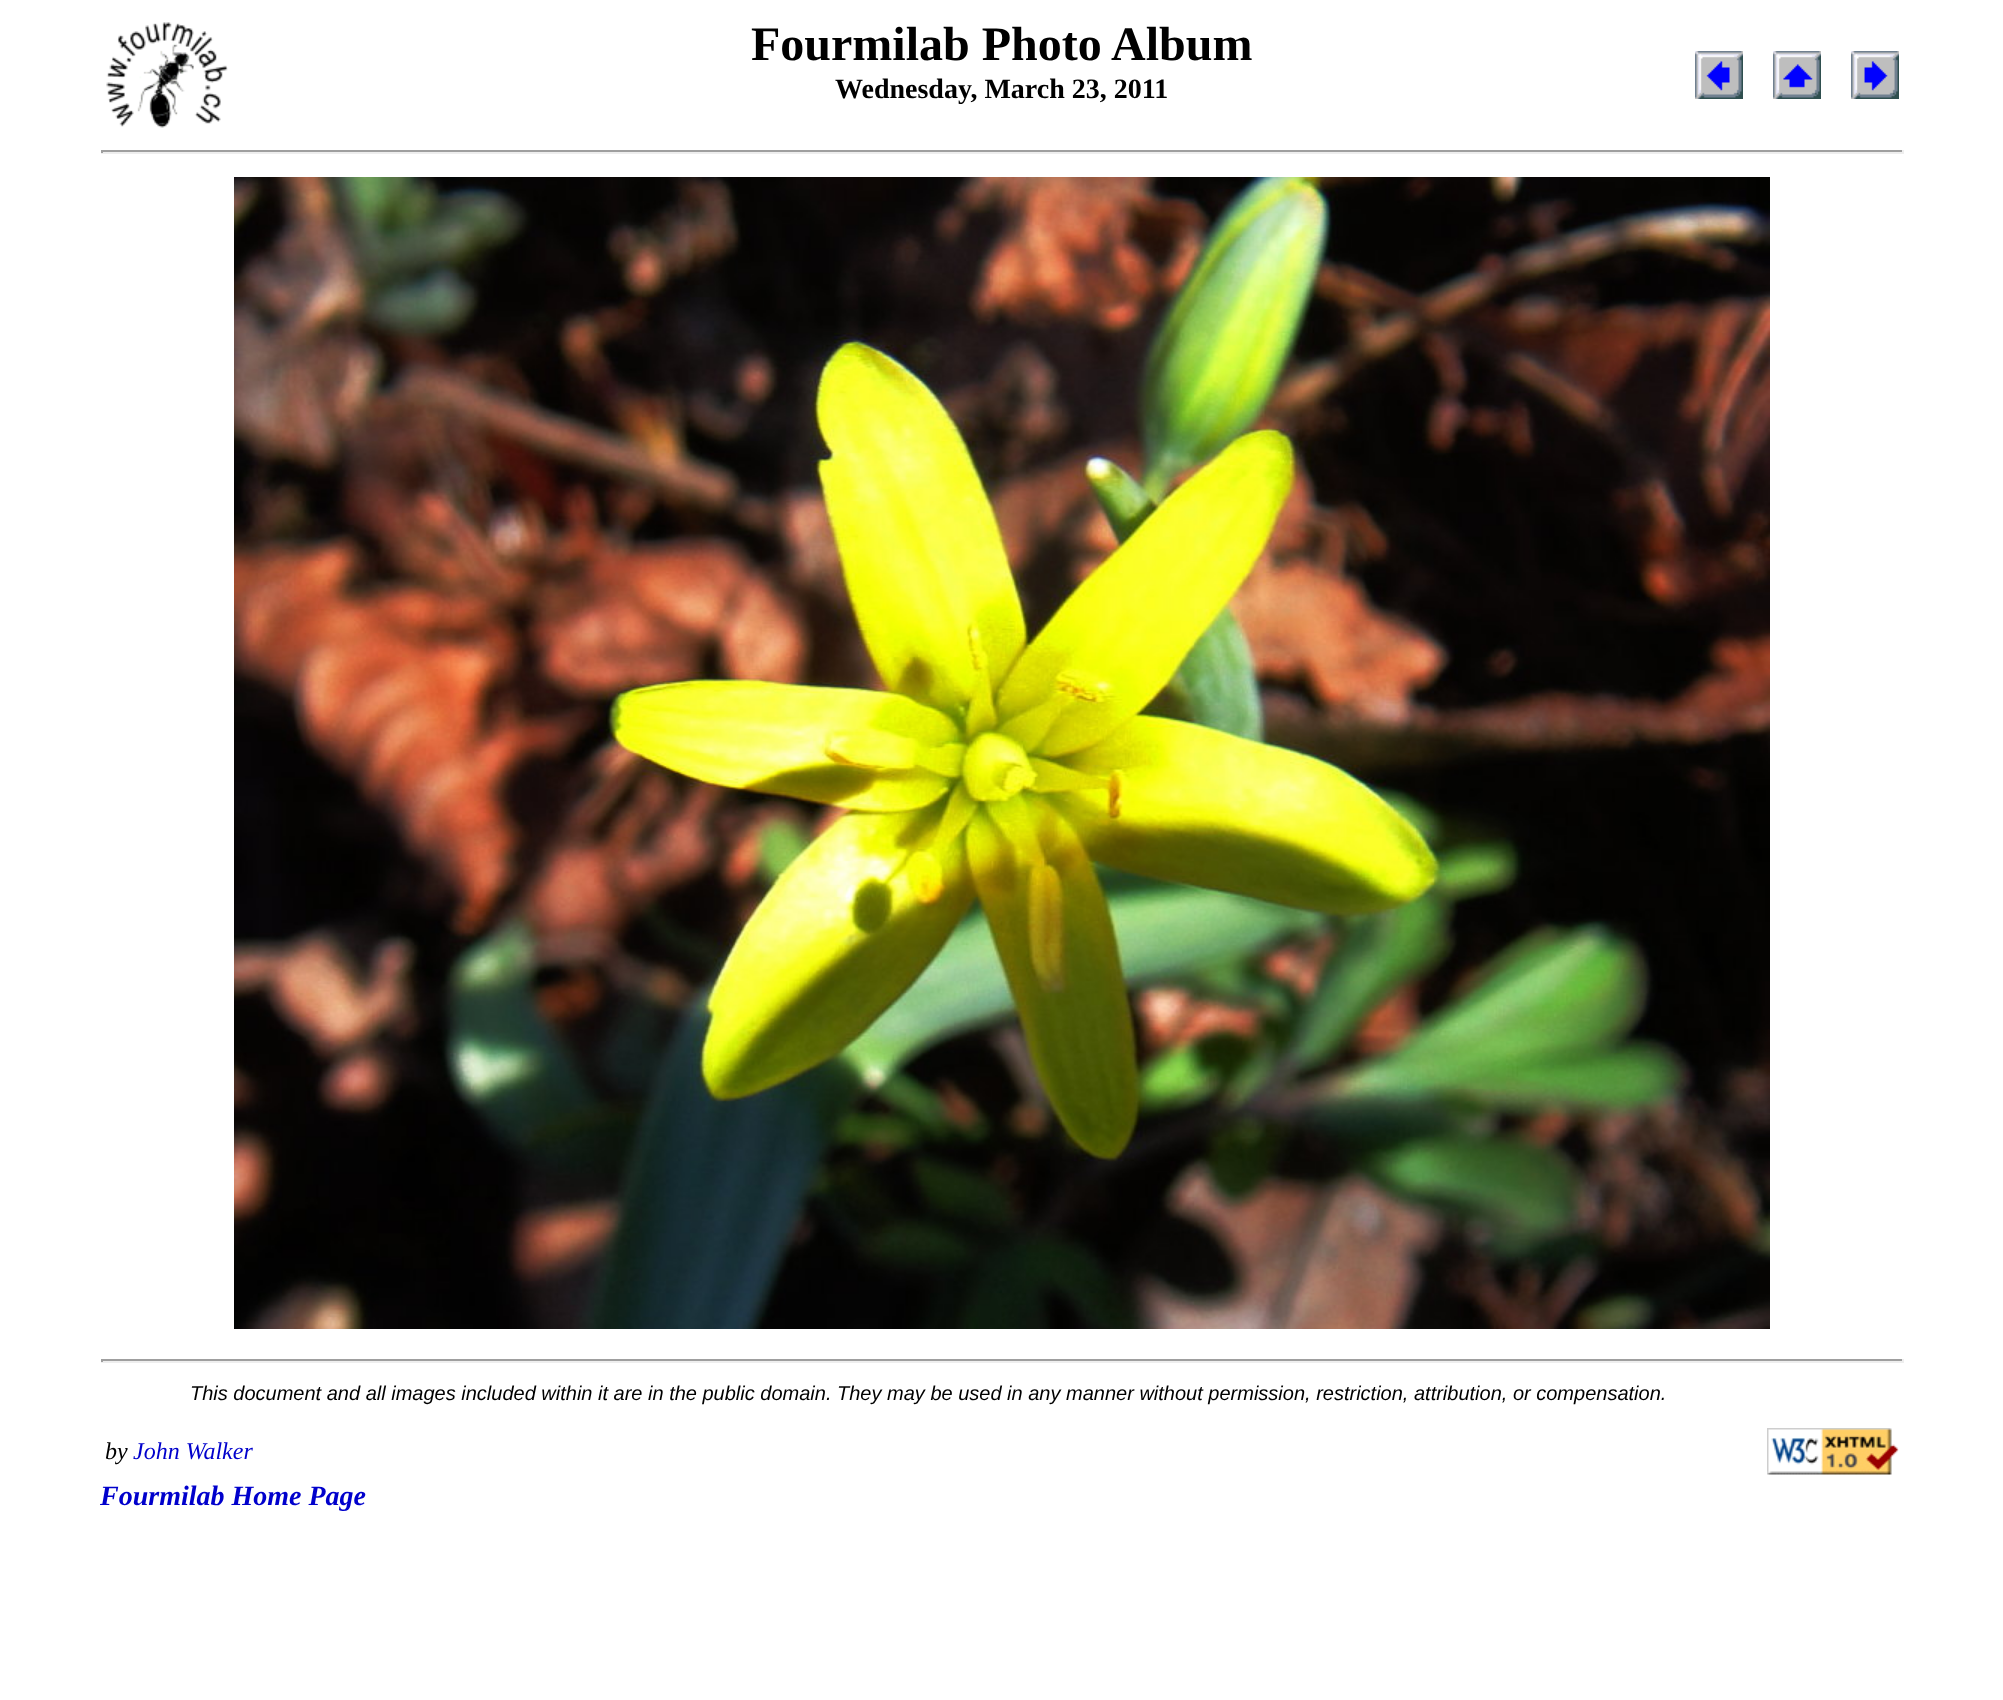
<!DOCTYPE html>
<meta charset="utf-8">
<style>body { margin: 0 } canvas { display: block }</style>
<canvas id="canvas" width="2003" height="1700"></canvas>
<img id="img1" src="images/1.png" hidden>
<img id="img2" src="images/2.png" hidden>
<img id="img3" src="images/3.png" hidden>
<img id="img4" src="images/4.png" hidden>
<img id="img5" src="images/5.png" hidden>
<img id="img6" src="images/6.png" hidden>
<script>
window.onload = function () {
    const canvas = document.getElementById('canvas');
    const context = canvas.getContext('2d');
    context.miterLimit = 4;
    context.fontKerning = 'normal';

    context.fillStyle = 'rgb(255, 255, 255)';
    context.fillRect(0, 0, 2003, 1700);
    context.drawImage(document.getElementById('img1'), 106, 22, 122, 106);
    context.drawImage(document.getElementById('img2'), 1695, 51, 48, 48);
    context.drawImage(document.getElementById('img3'), 1773, 51, 48, 48);
    context.drawImage(document.getElementById('img4'), 1851, 51, 48, 48);
    context.fillStyle = 'rgb(159, 159, 159)';
    context.fillRect(101, 150, 1803, 2);
    context.fillStyle = 'rgb(238, 238, 238)';
    context.fillRect(1902, 150, 2, 3);
    context.fillRect(101, 152, 1803, 2);
    context.fillStyle = 'rgb(159, 159, 159)';
    context.fillRect(101, 150, 2, 3);
    context.drawImage(document.getElementById('img5'), 234, 177, 1536, 1152);
    context.fillRect(101, 1359, 1803, 2);
    context.fillStyle = 'rgb(238, 238, 238)';
    context.fillRect(1902, 1359, 2, 3);
    context.fillRect(101, 1361, 1803, 2);
    context.fillStyle = 'rgb(159, 159, 159)';
    context.fillRect(101, 1359, 2, 3);
    context.drawImage(document.getElementById('img6'), 1767, 1428, 132, 47);
    context.font = 'bold 48px Liberation Serif';
    context.fillStyle = 'rgb(0, 0, 0)';
    context.fillText('Fourmilab Photo Album', 751, 60);
    context.font = 'bold 28px Liberation Serif';
    context.fillText('Wednesday, March 23, 2011', 835, 98);
    context.font = 'italic 20px Liberation Sans';
    context.fillText('This document and all images included within it are in the public domain. They may be used in any manner without permission, restriction, attribution, or compensation.', 190, 1400);
    context.font = 'italic 24px Liberation Serif';
    context.fillText('by', 105, 1459);
    context.fillStyle = 'rgb(0, 0, 204)';
    context.fillText('John Walker', 133, 1459);
    context.font = 'italic bold 28px Liberation Serif';
    context.fillText('Fourmilab Home Page', 100, 1505);
};
</script>
